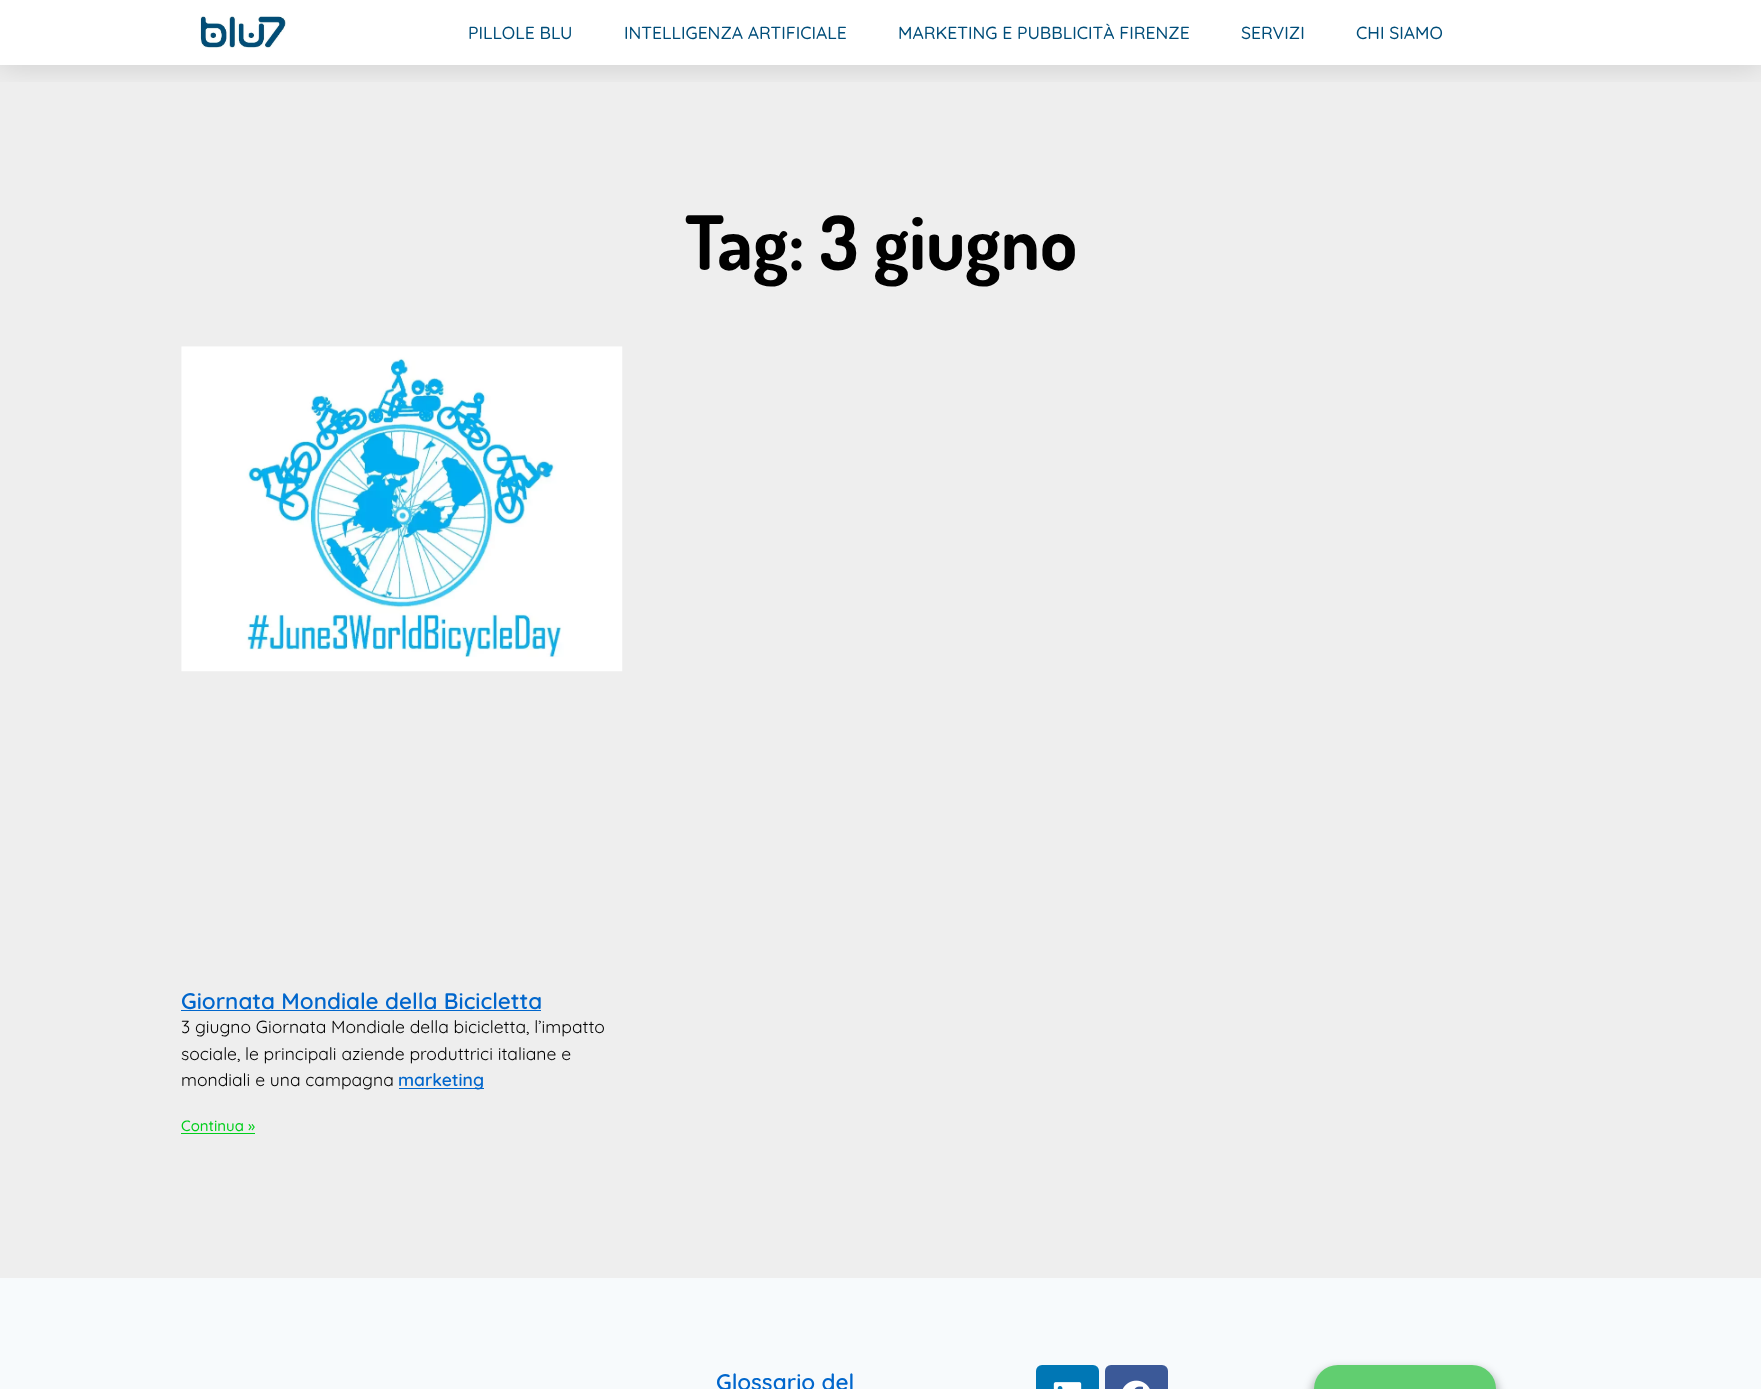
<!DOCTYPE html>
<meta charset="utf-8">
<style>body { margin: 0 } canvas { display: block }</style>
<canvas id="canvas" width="1761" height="1389"></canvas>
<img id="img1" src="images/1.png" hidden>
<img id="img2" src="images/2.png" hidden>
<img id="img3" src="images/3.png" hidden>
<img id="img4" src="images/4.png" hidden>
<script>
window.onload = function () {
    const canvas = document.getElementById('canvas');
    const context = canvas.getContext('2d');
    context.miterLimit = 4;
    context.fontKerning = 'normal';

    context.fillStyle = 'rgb(255, 255, 255)';
    context.fillRect(0, 0, 1761, 1389);
    context.fillStyle = 'rgb(238, 238, 238)';
    context.fillRect(0, 65, 1761, 1213);
    context.save();
    context.beginPath();
    context.rect(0, 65, 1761, 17);
    context.clip();
    context.fillStyle = 'rgba(0, 0, 0, 0.15)';
    context.filter = 'blur(15px)';
    context.beginPath();
    context.rect(0, 0, 1761, 65);
    context.fill();
    context.filter = 'none';
    context.restore();
    context.drawImage(document.getElementById('img1'), 200, 16, 86, 32);
    context.drawImage(document.getElementById('img2'), 181, 346, 442, 326);
    context.fillStyle = 'rgb(0, 102, 204)';
    context.fillRect(181, 1010, 360, 1);
    context.fillRect(399, 1088, 85, 1);
    context.fillStyle = 'rgb(0, 206, 27)';
    context.fillRect(181, 1133, 74, 1);
    context.fillStyle = 'rgb(247, 250, 252)';
    context.fillRect(0, 1278, 1761, 111);
    context.fillStyle = 'rgb(0, 119, 181)';
    context.beginPath();
    context.roundRect(1036, 1365, 63, 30, 6);
    context.fill();
    context.drawImage(document.getElementById('img3'), 1053, 1382, 29, 7);
    context.fillStyle = 'rgb(59, 89, 152)';
    context.beginPath();
    context.roundRect(1105, 1365, 63, 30, 6);
    context.fill();
    context.drawImage(document.getElementById('img4'), 1122, 1380, 28, 9);
    context.fillStyle = 'rgba(0, 0, 0, 0.25)';
    context.filter = 'blur(4px)';
    context.beginPath();
    context.roundRect(1311, 1368, 188, 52, 26);
    context.fill();
    context.filter = 'none';
    context.fillStyle = 'rgb(97, 206, 112)';
    context.beginPath();
    context.roundRect(1314, 1365, 182, 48, 24);
    context.fill();
    context.font = '500 17.5px Quicksand';
    context.fillStyle = 'rgb(0, 77, 121)';
    context.fillText('PILLOLE BLU', 468, 39);
    context.fillText('INTELLIGENZA ARTIFICIALE', 624, 39);
    context.fillText('MARKETING E PUBBLICITÀ FIRENZE', 898, 39);
    context.fillText('SERVIZI', 1241, 39);
    context.fillText('CHI SIAMO', 1356, 39);
    context.font = 'bold 75px Dosis';
    context.fillStyle = 'rgb(0, 0, 0)';
    context.fillText('Tag: 3 giugno', 685, 270);
    context.font = '600 22.5px Quicksand';
    context.fillStyle = 'rgb(0, 102, 204)';
    context.fillText('Giornata Mondiale della Bicicletta', 181, 1009);
    context.font = '17.5px Quicksand';
    context.fillStyle = 'rgb(0, 0, 0)';
    context.fillText('3 giugno Giornata Mondiale della bicicletta, l’impatto', 181, 1033);
    context.fillText('sociale, le principali aziende produttrici italiane e', 181, 1060);
    context.fillText('mondiali e una campagna', 181, 1086);
    context.font = '600 17.5px Quicksand';
    context.fillStyle = 'rgb(0, 102, 204)';
    context.fillText('marketing', 398, 1086);
    context.font = '500 15px Quicksand';
    context.fillStyle = 'rgb(0, 206, 27)';
    context.fillText('Continua »', 181, 1131);
    context.font = '600 22.5px Quicksand';
    context.fillStyle = 'rgb(0, 102, 204)';
    context.fillText('Glossario del', 716, 1390);
};
</script>
